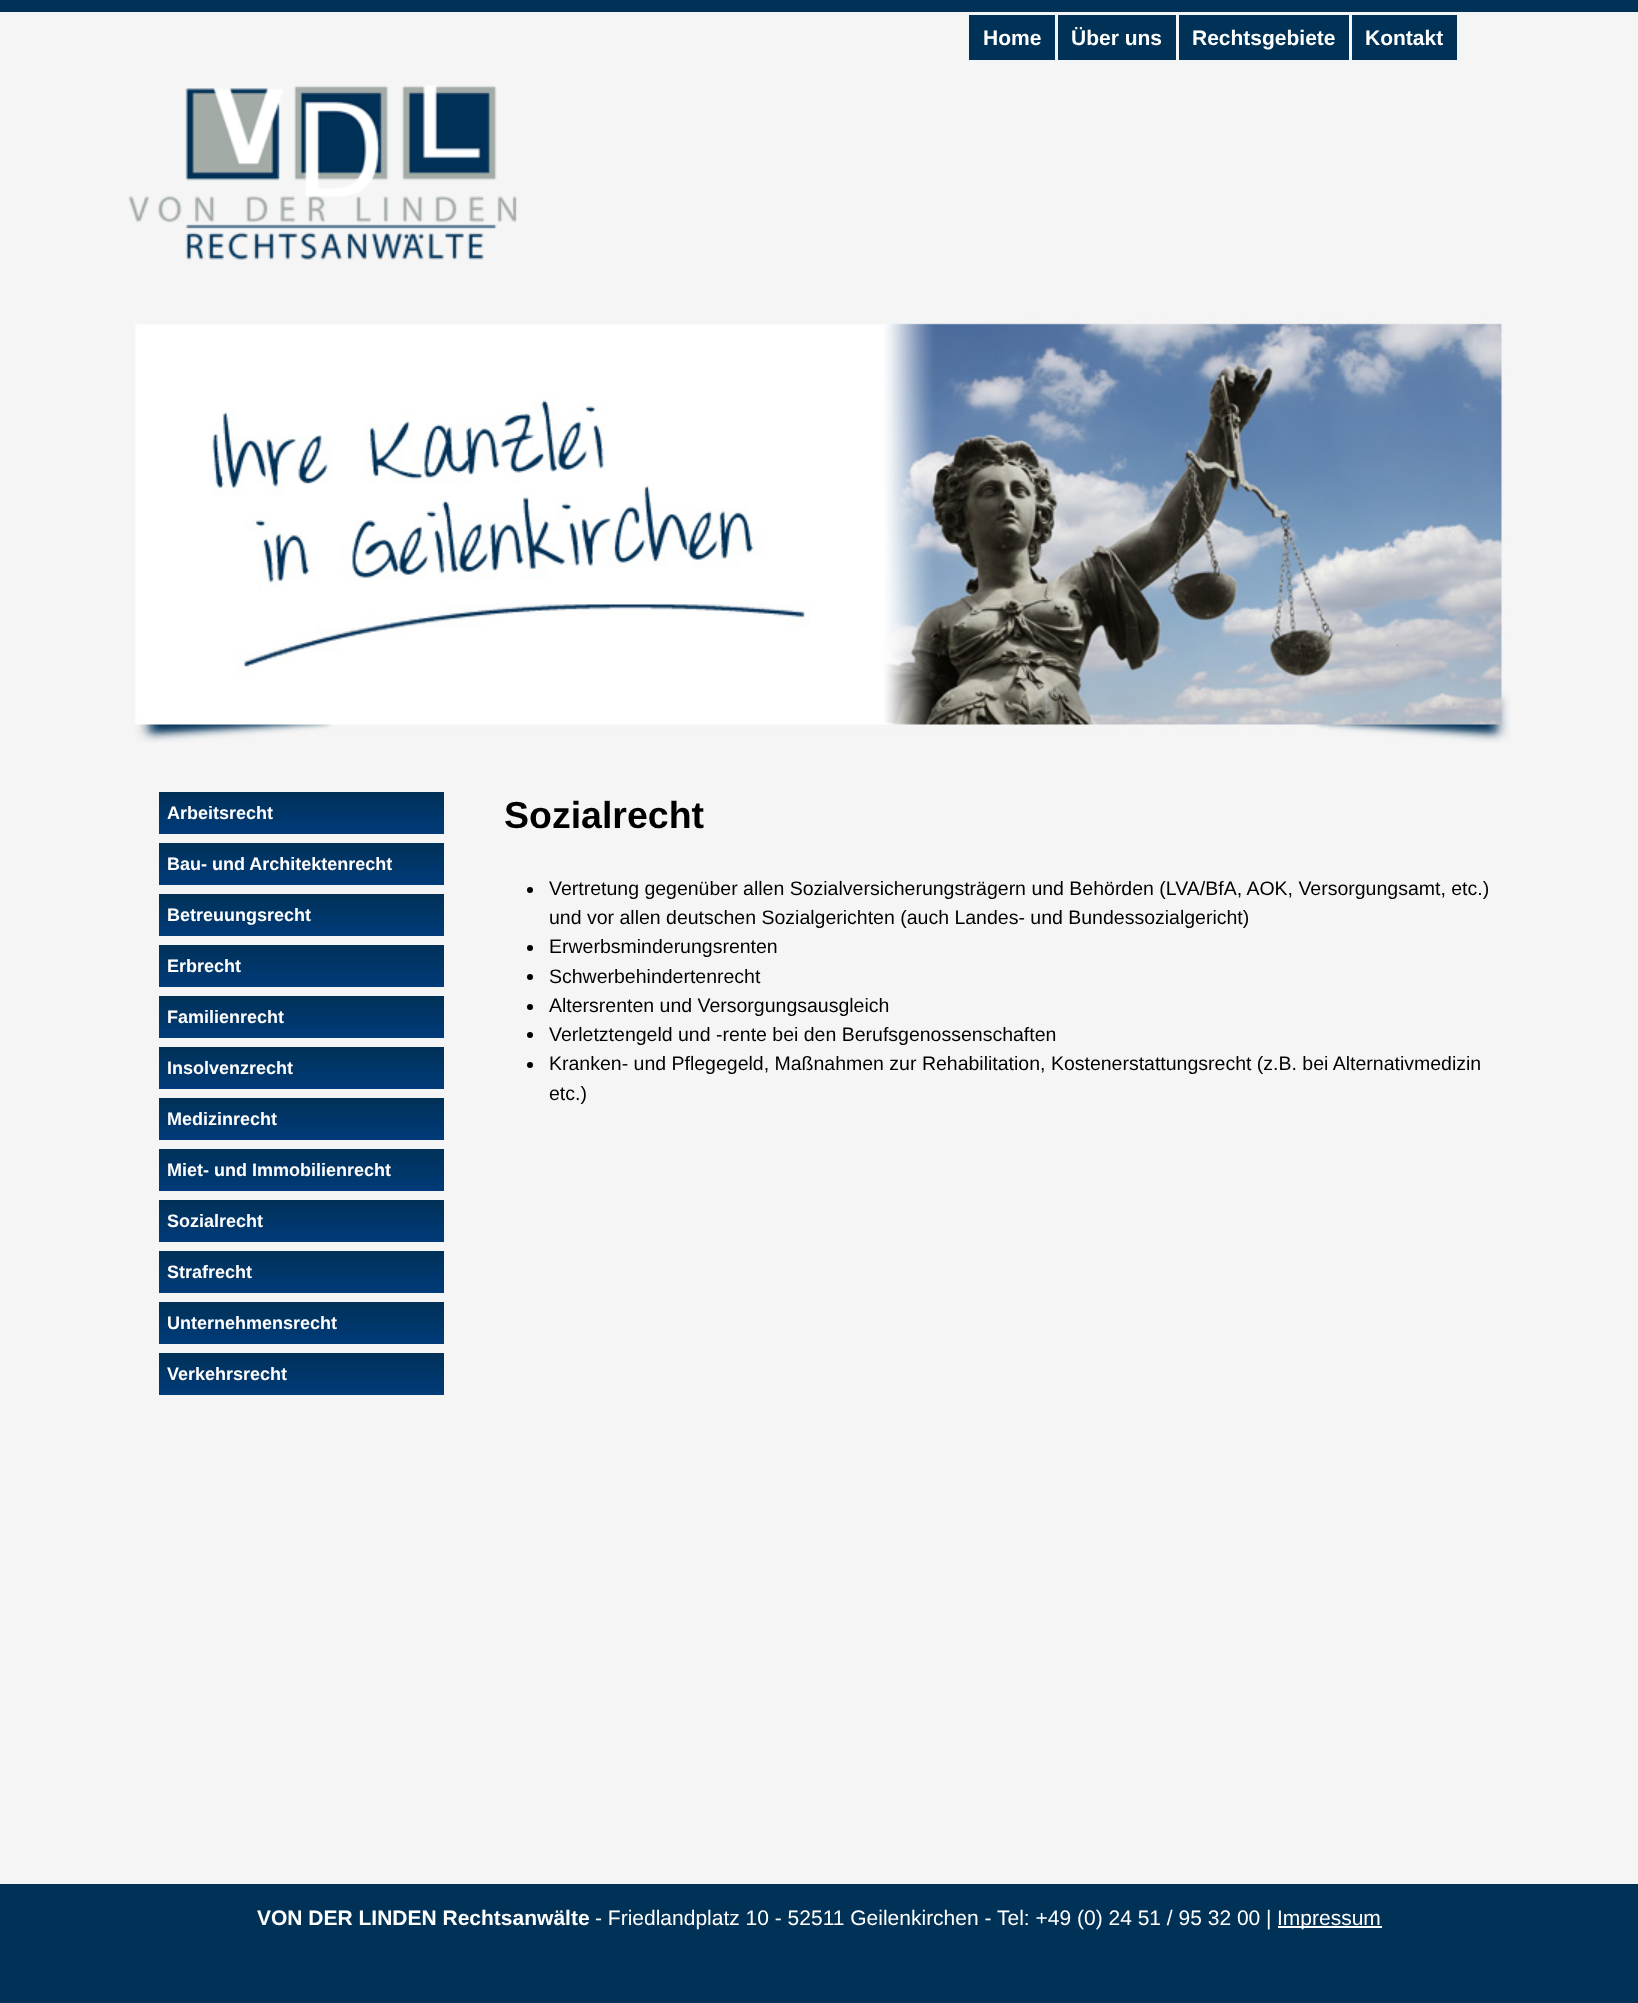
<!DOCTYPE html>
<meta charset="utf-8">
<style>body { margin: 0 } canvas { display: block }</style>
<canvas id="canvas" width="1638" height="2003"></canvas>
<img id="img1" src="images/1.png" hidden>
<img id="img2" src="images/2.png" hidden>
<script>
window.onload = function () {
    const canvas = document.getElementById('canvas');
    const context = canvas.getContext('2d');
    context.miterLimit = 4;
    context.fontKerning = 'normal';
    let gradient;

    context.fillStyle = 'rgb(245, 245, 245)';
    context.fillRect(0, 0, 1638, 2003);
    context.fillStyle = 'rgb(0, 50, 87)';
    context.fillRect(0, 0, 1638, 12);
    context.fillStyle = 'rgb(0, 49, 87)';
    context.fillRect(969, 15, 86, 45);
    context.fillRect(1058, 15, 118, 45);
    context.fillRect(1179, 15, 170, 45);
    context.fillRect(1352, 15, 105, 45);
    context.drawImage(document.getElementById('img1'), 128, 85, 389, 175);
    context.drawImage(document.getElementById('img2'), 135, 317, 1375, 426);
    gradient = context.createLinearGradient(302, 792, 302, 834);
    gradient.addColorStop(0, 'rgb(0, 49, 87)');
    gradient.addColorStop(1, 'rgb(0, 59, 122)');
    context.fillStyle = gradient;
    context.fillRect(159, 792, 285, 42);
    gradient = context.createLinearGradient(302, 843, 302, 885);
    gradient.addColorStop(0, 'rgb(0, 49, 87)');
    gradient.addColorStop(1, 'rgb(0, 59, 122)');
    context.fillStyle = gradient;
    context.fillRect(159, 843, 285, 42);
    gradient = context.createLinearGradient(302, 894, 302, 936);
    gradient.addColorStop(0, 'rgb(0, 49, 87)');
    gradient.addColorStop(1, 'rgb(0, 59, 122)');
    context.fillStyle = gradient;
    context.fillRect(159, 894, 285, 42);
    gradient = context.createLinearGradient(302, 945, 302, 987);
    gradient.addColorStop(0, 'rgb(0, 49, 87)');
    gradient.addColorStop(1, 'rgb(0, 59, 122)');
    context.fillStyle = gradient;
    context.fillRect(159, 945, 285, 42);
    gradient = context.createLinearGradient(302, 996, 302, 1038);
    gradient.addColorStop(0, 'rgb(0, 49, 87)');
    gradient.addColorStop(1, 'rgb(0, 59, 122)');
    context.fillStyle = gradient;
    context.fillRect(159, 996, 285, 42);
    gradient = context.createLinearGradient(302, 1047, 302, 1089);
    gradient.addColorStop(0, 'rgb(0, 49, 87)');
    gradient.addColorStop(1, 'rgb(0, 59, 122)');
    context.fillStyle = gradient;
    context.fillRect(159, 1047, 285, 42);
    gradient = context.createLinearGradient(302, 1098, 302, 1140);
    gradient.addColorStop(0, 'rgb(0, 49, 87)');
    gradient.addColorStop(1, 'rgb(0, 59, 122)');
    context.fillStyle = gradient;
    context.fillRect(159, 1098, 285, 42);
    gradient = context.createLinearGradient(302, 1149, 302, 1191);
    gradient.addColorStop(0, 'rgb(0, 49, 87)');
    gradient.addColorStop(1, 'rgb(0, 59, 122)');
    context.fillStyle = gradient;
    context.fillRect(159, 1149, 285, 42);
    gradient = context.createLinearGradient(302, 1200, 302, 1242);
    gradient.addColorStop(0, 'rgb(0, 49, 87)');
    gradient.addColorStop(1, 'rgb(0, 59, 122)');
    context.fillStyle = gradient;
    context.fillRect(159, 1200, 285, 42);
    gradient = context.createLinearGradient(302, 1251, 302, 1293);
    gradient.addColorStop(0, 'rgb(0, 49, 87)');
    gradient.addColorStop(1, 'rgb(0, 59, 122)');
    context.fillStyle = gradient;
    context.fillRect(159, 1251, 285, 42);
    gradient = context.createLinearGradient(302, 1302, 302, 1344);
    gradient.addColorStop(0, 'rgb(0, 49, 87)');
    gradient.addColorStop(1, 'rgb(0, 59, 122)');
    context.fillStyle = gradient;
    context.fillRect(159, 1302, 285, 42);
    gradient = context.createLinearGradient(302, 1353, 302, 1395);
    gradient.addColorStop(0, 'rgb(0, 49, 87)');
    gradient.addColorStop(1, 'rgb(0, 59, 122)');
    context.fillStyle = gradient;
    context.fillRect(159, 1353, 285, 42);
    context.fillStyle = 'rgb(0, 0, 0)';
    context.beginPath();
    context.arc(530, 890, 3, 0, 2 * Math.PI);
    context.fill();
    context.beginPath();
    context.arc(530, 948, 3, 0, 2 * Math.PI);
    context.fill();
    context.beginPath();
    context.arc(530, 977, 3, 0, 2 * Math.PI);
    context.fill();
    context.beginPath();
    context.arc(530, 1007, 3, 0, 2 * Math.PI);
    context.fill();
    context.beginPath();
    context.arc(530, 1035, 3, 0, 2 * Math.PI);
    context.fill();
    context.beginPath();
    context.arc(530, 1065, 3, 0, 2 * Math.PI);
    context.fill();
    context.fillStyle = 'rgb(0, 49, 87)';
    context.fillRect(0, 1884, 1638, 119);
    context.fillStyle = 'rgb(255, 255, 255)';
    context.fillRect(1278, 1926, 104, 2);
    context.font = 'bold 21px Liberation Sans';
    context.fillText('Home', 983, 45);
    context.fillText('Über uns', 1071, 45);
    context.fillText('Rechtsgebiete', 1192, 45);
    context.fillText('Kontakt', 1365, 45);
    context.font = 'bold 18px Liberation Sans';
    context.fillText('Arbeitsrecht', 167, 819);
    context.fillText('Bau- und Architektenrecht', 167, 870);
    context.fillText('Betreuungsrecht', 167, 921);
    context.fillText('Erbrecht', 167, 972);
    context.fillText('Familienrecht', 167, 1023);
    context.fillText('Insolvenzrecht', 167, 1074);
    context.fillText('Medizinrecht', 167, 1125);
    context.fillText('Miet- und Immobilienrecht', 167, 1176);
    context.fillText('Sozialrecht', 167, 1227);
    context.fillText('Strafrecht', 167, 1278);
    context.fillText('Unternehmensrecht', 167, 1329);
    context.fillText('Verkehrsrecht', 167, 1380);
    context.font = 'bold 37.5px Liberation Sans';
    context.fillStyle = 'rgb(0, 0, 0)';
    context.fillText('Sozialrecht', 504, 828);
    context.font = '19.5px Liberation Sans';
    context.fillText('Vertretung gegenüber allen Sozialversicherungsträgern und Behörden (LVA/BfA, AOK, Versorgungsamt, etc.)', 549, 895);
    context.fillText('und vor allen deutschen Sozialgerichten (auch Landes- und Bundessozialgericht)', 549, 924);
    context.fillText('Erwerbsminderungsrenten', 549, 953);
    context.fillText('Schwerbehindertenrecht', 549, 983);
    context.fillText('Altersrenten und Versorgungsausgleich', 549, 1012);
    context.fillText('Verletztengeld und -rente bei den Berufsgenossenschaften', 549, 1041);
    context.fillText('Kranken- und Pflegegeld, Maßnahmen zur Rehabilitation, Kostenerstattungsrecht (z.B. bei Alternativmedizin', 549, 1070);
    context.fillText('etc.)', 549, 1100);
    context.font = 'bold 21px Liberation Sans';
    context.fillStyle = 'rgb(255, 255, 255)';
    context.fillText('VON DER LINDEN Rechtsanwälte', 257, 1925);
    context.font = '21px Liberation Sans';
    context.fillText('- Friedlandplatz 10 - 52511 Geilenkirchen -', 595, 1925);
    context.fillText('Tel: +49 (0) 24 51 / 95 32 00 |', 997, 1925);
    context.fillText('Impressum', 1277, 1925);
};
</script>
